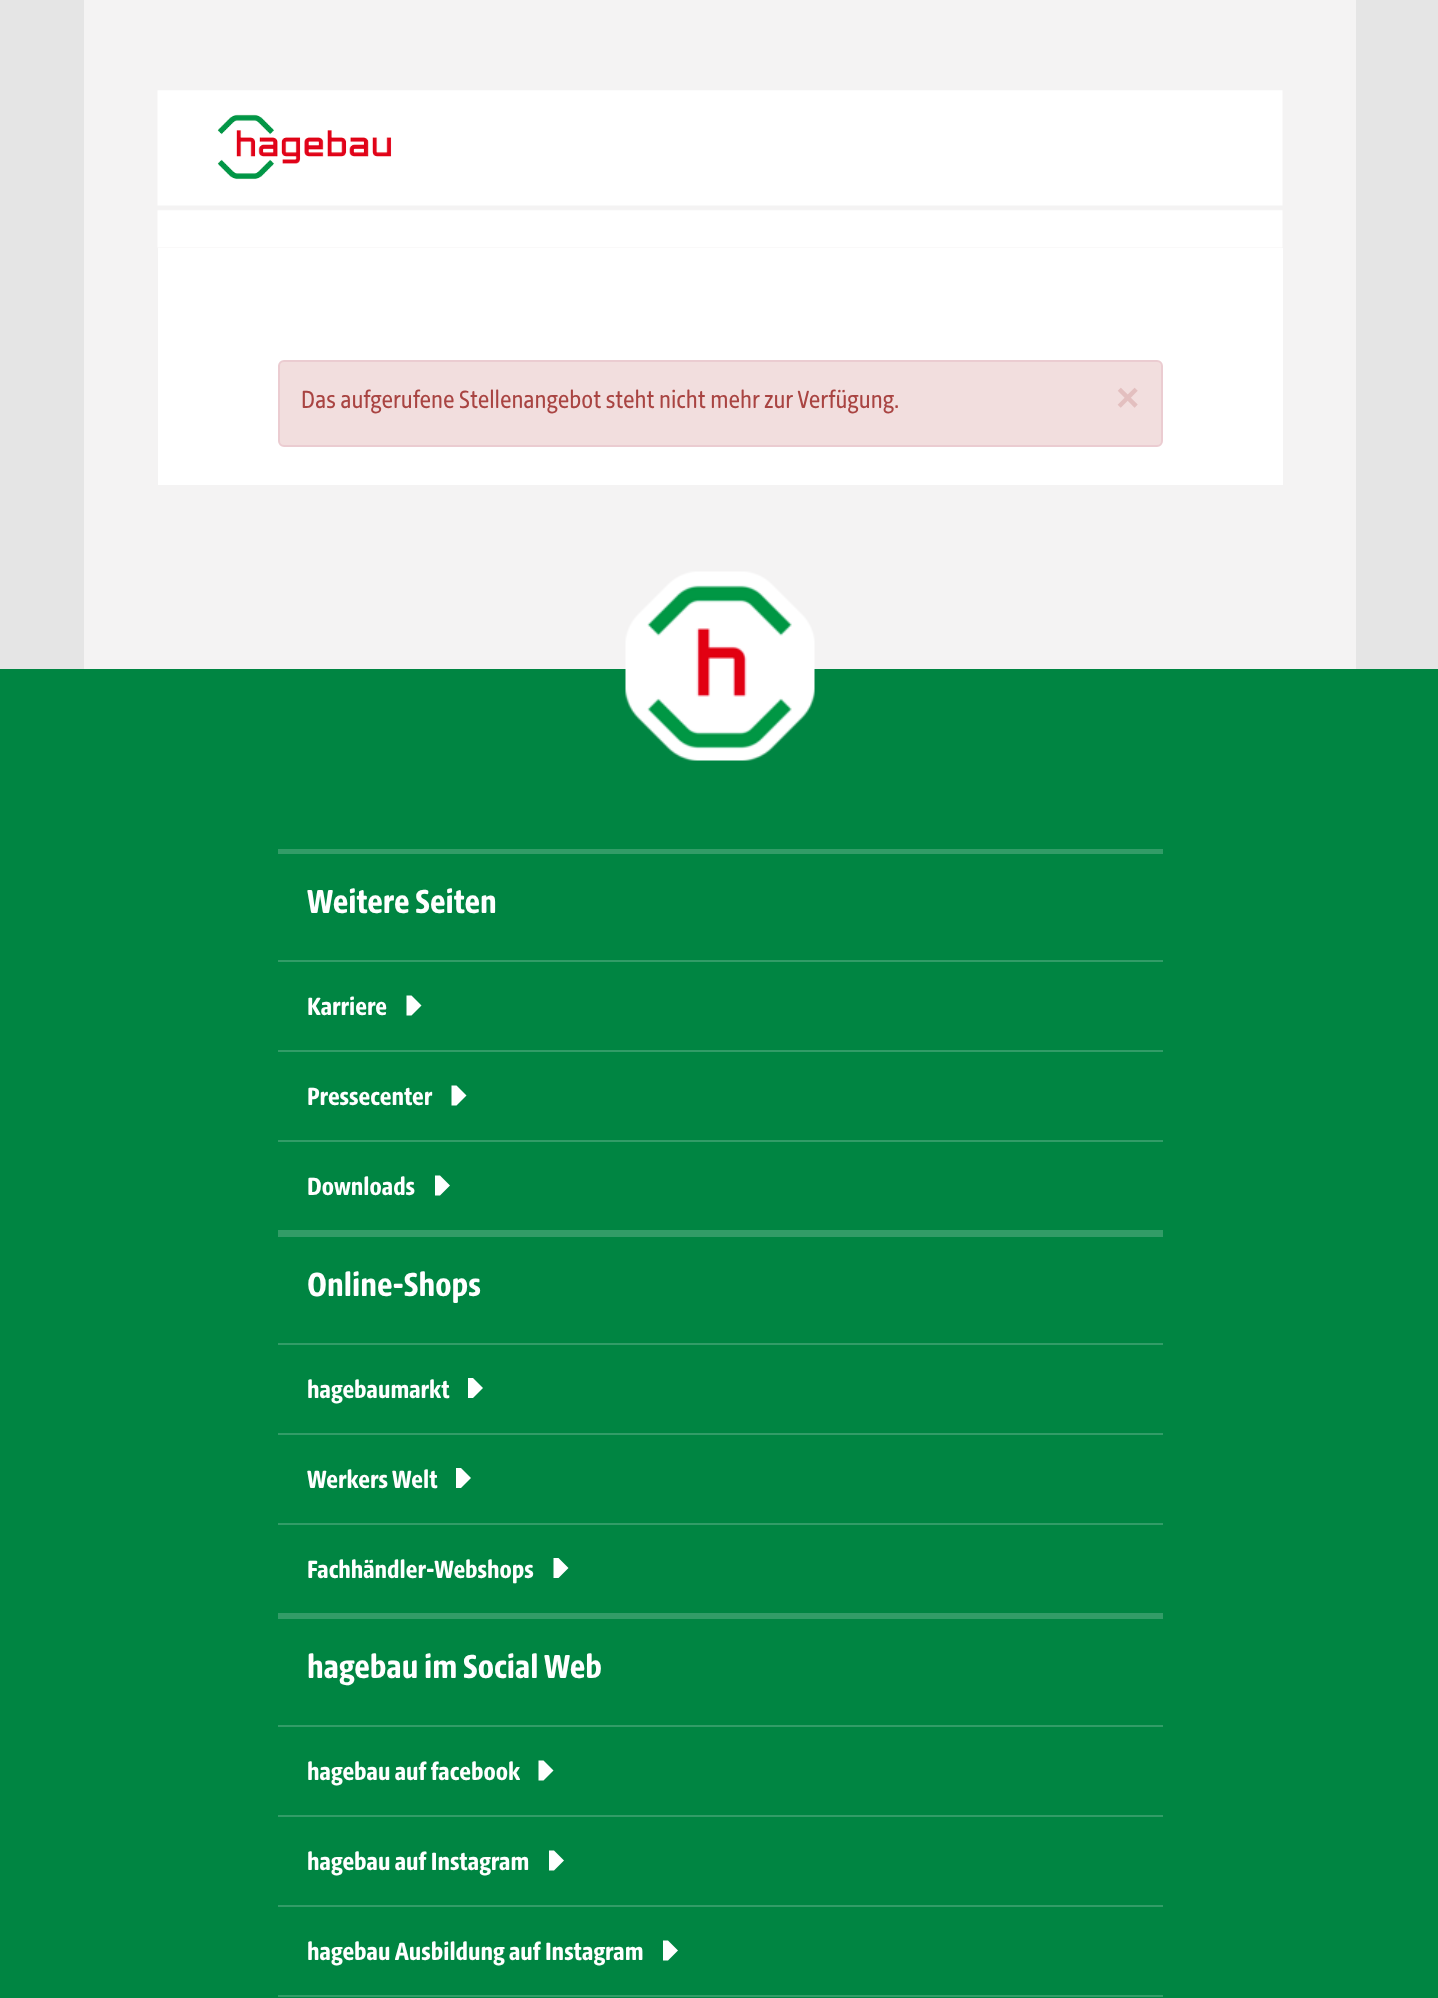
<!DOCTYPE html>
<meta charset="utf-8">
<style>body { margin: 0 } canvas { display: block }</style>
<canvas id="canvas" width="1438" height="1998"></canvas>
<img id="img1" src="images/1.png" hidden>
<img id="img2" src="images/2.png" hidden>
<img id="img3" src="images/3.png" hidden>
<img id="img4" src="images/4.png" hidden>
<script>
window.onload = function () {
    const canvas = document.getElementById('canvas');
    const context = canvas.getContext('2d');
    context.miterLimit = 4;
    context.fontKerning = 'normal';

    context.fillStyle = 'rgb(229, 229, 229)';
    context.fillRect(0, 0, 1438, 1998);
    context.drawImage(document.getElementById('img1'), 84, 0, 1272, 669);
    context.drawImage(document.getElementById('img2'), 157, 90, 1126, 158);
    context.drawImage(document.getElementById('img3'), 217, 114, 175, 66);
    context.fillStyle = 'rgb(255, 255, 255)';
    context.fillRect(158, 248, 1125, 237);
    context.fillStyle = 'rgb(242, 222, 222)';
    context.beginPath();
    context.roundRect(279, 361, 883, 85, 5);
    context.fill();
    context.strokeStyle = 'rgb(235, 204, 209)';
    context.lineWidth = 2;
    context.stroke();
    context.fillStyle = 'rgb(0, 133, 66)';
    context.fillRect(0, 669, 1438, 1329);
    context.drawImage(document.getElementById('img4'), 625, 571, 190, 190);
    context.fillStyle = 'rgb(50, 156, 103)';
    context.fillRect(278, 849, 885, 5);
    context.fillRect(278, 960, 885, 2);
    context.fillRect(278, 1050, 885, 2);
    context.fillStyle = 'rgb(255, 255, 255)';
    context.beginPath();
    context.moveTo(406.5, 995.5);
    context.lineTo(411.5, 995.5);
    context.lineTo(421.5, 1005.5);
    context.lineTo(411.5, 1015.5);
    context.lineTo(406.5, 1015.5);
    context.closePath();
    context.fill();
    context.fillStyle = 'rgb(50, 156, 103)';
    context.fillRect(278, 1140, 885, 2);
    context.fillStyle = 'rgb(255, 255, 255)';
    context.beginPath();
    context.moveTo(451.5, 1085.5);
    context.lineTo(456.5, 1085.5);
    context.lineTo(466.5, 1095.5);
    context.lineTo(456.5, 1105.5);
    context.lineTo(451.5, 1105.5);
    context.closePath();
    context.fill();
    context.fillStyle = 'rgb(50, 156, 103)';
    context.fillRect(278, 1230, 885, 7);
    context.fillStyle = 'rgb(255, 255, 255)';
    context.beginPath();
    context.moveTo(435, 1175.5);
    context.lineTo(440, 1175.5);
    context.lineTo(450, 1185.5);
    context.lineTo(440, 1195.5);
    context.lineTo(435, 1195.5);
    context.closePath();
    context.fill();
    context.fillStyle = 'rgb(50, 156, 103)';
    context.fillRect(278, 1343, 885, 2);
    context.fillRect(278, 1433, 885, 2);
    context.fillStyle = 'rgb(255, 255, 255)';
    context.beginPath();
    context.moveTo(468, 1378);
    context.lineTo(473, 1378);
    context.lineTo(483, 1388);
    context.lineTo(473, 1398);
    context.lineTo(468, 1398);
    context.closePath();
    context.fill();
    context.fillStyle = 'rgb(50, 156, 103)';
    context.fillRect(278, 1523, 885, 2);
    context.fillStyle = 'rgb(255, 255, 255)';
    context.beginPath();
    context.moveTo(456, 1468);
    context.lineTo(461, 1468);
    context.lineTo(471, 1478);
    context.lineTo(461, 1488);
    context.lineTo(456, 1488);
    context.closePath();
    context.fill();
    context.fillStyle = 'rgb(50, 156, 103)';
    context.fillRect(278, 1613, 885, 6);
    context.fillStyle = 'rgb(255, 255, 255)';
    context.beginPath();
    context.moveTo(553.5, 1558);
    context.lineTo(558.5, 1558);
    context.lineTo(568.5, 1568);
    context.lineTo(558.5, 1578);
    context.lineTo(553.5, 1578);
    context.closePath();
    context.fill();
    context.fillStyle = 'rgb(50, 156, 103)';
    context.fillRect(278, 1725, 885, 2);
    context.fillRect(278, 1815, 885, 2);
    context.fillStyle = 'rgb(255, 255, 255)';
    context.beginPath();
    context.moveTo(538.5, 1760.5);
    context.lineTo(543.5, 1760.5);
    context.lineTo(553.5, 1770.5);
    context.lineTo(543.5, 1780.5);
    context.lineTo(538.5, 1780.5);
    context.closePath();
    context.fill();
    context.fillStyle = 'rgb(50, 156, 103)';
    context.fillRect(278, 1905, 885, 2);
    context.fillStyle = 'rgb(255, 255, 255)';
    context.beginPath();
    context.moveTo(549, 1850.5);
    context.lineTo(554, 1850.5);
    context.lineTo(564, 1860.5);
    context.lineTo(554, 1870.5);
    context.lineTo(549, 1870.5);
    context.closePath();
    context.fill();
    context.fillStyle = 'rgb(50, 156, 103)';
    context.fillRect(278, 1995, 885, 2);
    context.fillStyle = 'rgb(255, 255, 255)';
    context.beginPath();
    context.moveTo(663, 1940.5);
    context.lineTo(668, 1940.5);
    context.lineTo(678, 1950.5);
    context.lineTo(668, 1960.5);
    context.lineTo(663, 1960.5);
    context.closePath();
    context.fill();
    context.font = '27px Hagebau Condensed';
    context.fillStyle = 'rgb(169, 68, 66)';
    context.fillText('Das aufgerufene Stellenangebot steht nicht mehr zur Verfügung.', 301, 408);
    context.font = 'bold 40px Liberation Sans';
    context.fillStyle = 'rgb(227, 191, 191)';
    context.fillText('×', 1116, 411);
    context.font = 'bold 36px Hagebau Condensed';
    context.fillStyle = 'rgb(255, 255, 255)';
    context.fillText('Weitere Seiten', 307, 913);
    context.font = 'bold 27px Hagebau Condensed';
    context.fillText('Karriere', 307, 1015);
    context.fillText('Pressecenter', 307, 1105);
    context.fillText('Downloads', 307, 1195);
    context.font = 'bold 36px Hagebau Condensed';
    context.fillText('Online-Shops', 307, 1296);
    context.font = 'bold 27px Hagebau Condensed';
    context.fillText('hagebaumarkt', 307, 1398);
    context.fillText('Werkers Welt', 307, 1488);
    context.fillText('Fachhändler-Webshops', 307, 1578);
    context.font = 'bold 36px Hagebau Condensed';
    context.fillText('hagebau im Social Web', 307, 1678);
    context.font = 'bold 27px Hagebau Condensed';
    context.fillText('hagebau auf facebook', 307, 1780);
    context.fillText('hagebau auf Instagram', 307, 1870);
    context.fillText('hagebau Ausbildung auf Instagram', 307, 1960);
};
</script>
